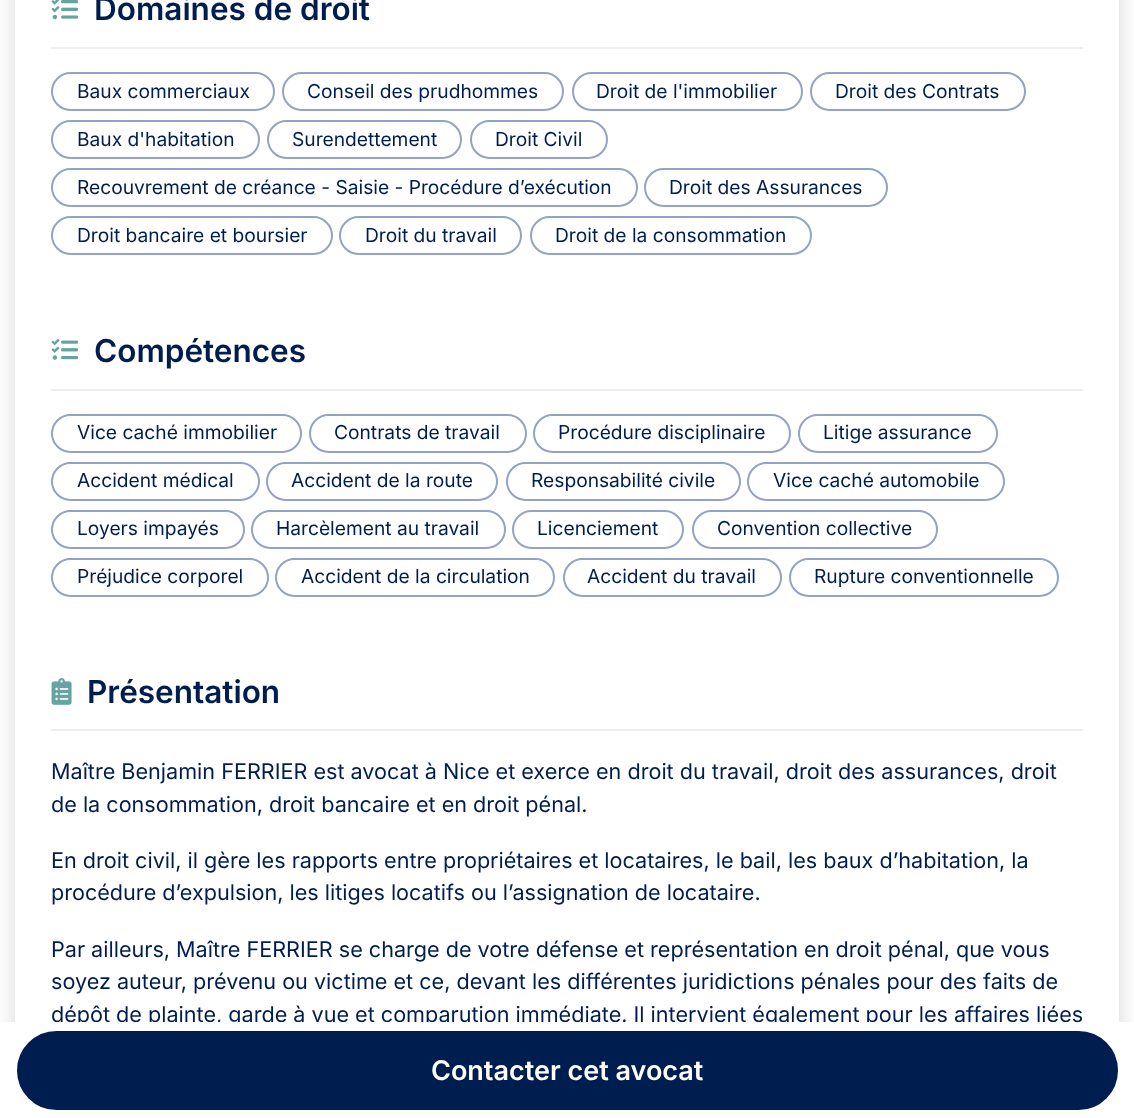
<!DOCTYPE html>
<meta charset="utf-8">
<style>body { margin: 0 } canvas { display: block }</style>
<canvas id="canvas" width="1134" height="1118"></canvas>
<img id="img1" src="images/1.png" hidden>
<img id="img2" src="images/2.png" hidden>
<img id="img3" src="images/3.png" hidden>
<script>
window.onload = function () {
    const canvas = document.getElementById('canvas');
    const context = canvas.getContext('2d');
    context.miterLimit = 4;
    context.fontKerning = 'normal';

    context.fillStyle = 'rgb(255, 255, 255)';
    context.fillRect(0, 0, 1134, 1118);
    context.save();
    context.beginPath();
    context.moveTo(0, 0);
    context.lineTo(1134, 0);
    context.lineTo(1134, 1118);
    context.lineTo(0, 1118);
    context.closePath();
    context.moveTo(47, -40);
    context.lineTo(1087, -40);
    context.bezierCurveTo(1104.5, -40, 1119, -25.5, 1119, -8);
    context.lineTo(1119, 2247);
    context.bezierCurveTo(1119, 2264.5, 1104.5, 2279, 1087, 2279);
    context.lineTo(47, 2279);
    context.bezierCurveTo(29.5, 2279, 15, 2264.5, 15, 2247);
    context.lineTo(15, -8);
    context.bezierCurveTo(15, -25.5, 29.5, -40, 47, -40);
    context.closePath();
    context.clip('evenodd');
    context.fillStyle = 'rgba(0, 0, 0, 0.16)';
    context.filter = 'blur(11px)';
    context.beginPath();
    context.roundRect(15, -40, 1104, 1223, 32);
    context.fill();
    context.filter = 'none';
    context.restore();
    context.fillStyle = 'rgb(238, 238, 238)';
    context.fillRect(51, 47, 1032, 2);
    context.drawImage(document.getElementById('img1'), 51, 0, 28, 20);
    context.beginPath();
    context.roundRect(52, 73, 222, 37, 18.5);
    context.strokeStyle = 'rgb(148, 163, 195)';
    context.lineWidth = 2;
    context.stroke();
    context.beginPath();
    context.roundRect(283, 73, 280, 37, 18.5);
    context.stroke();
    context.beginPath();
    context.roundRect(573, 73, 229, 37, 18.5);
    context.stroke();
    context.beginPath();
    context.roundRect(811, 73, 214, 37, 18.5);
    context.stroke();
    context.beginPath();
    context.roundRect(52, 121, 207, 37, 18.5);
    context.stroke();
    context.beginPath();
    context.roundRect(268, 121, 193, 37, 18.5);
    context.stroke();
    context.beginPath();
    context.roundRect(471, 121, 136, 37, 18.5);
    context.stroke();
    context.beginPath();
    context.roundRect(52, 169, 585, 37, 18.5);
    context.stroke();
    context.beginPath();
    context.roundRect(645, 169, 242, 37, 18.5);
    context.stroke();
    context.beginPath();
    context.roundRect(52, 217, 280, 37, 18.5);
    context.stroke();
    context.beginPath();
    context.roundRect(340, 217, 181, 37, 18.5);
    context.stroke();
    context.beginPath();
    context.roundRect(531, 217, 280, 37, 18.5);
    context.stroke();
    context.fillRect(51, 389, 1032, 2);
    context.drawImage(document.getElementById('img2'), 51, 339, 28, 21);
    context.beginPath();
    context.roundRect(52, 415, 249, 37, 18.5);
    context.stroke();
    context.beginPath();
    context.roundRect(310, 415, 216, 37, 18.5);
    context.stroke();
    context.beginPath();
    context.roundRect(534, 415, 256, 37, 18.5);
    context.stroke();
    context.beginPath();
    context.roundRect(799, 415, 198, 37, 18.5);
    context.stroke();
    context.beginPath();
    context.roundRect(52, 463, 207, 37, 18.5);
    context.stroke();
    context.beginPath();
    context.roundRect(267, 463, 230, 37, 18.5);
    context.stroke();
    context.beginPath();
    context.roundRect(507, 463, 233, 37, 18.5);
    context.stroke();
    context.beginPath();
    context.roundRect(748, 463, 256, 37, 18.5);
    context.stroke();
    context.beginPath();
    context.roundRect(52, 511, 192, 37, 18.5);
    context.stroke();
    context.beginPath();
    context.roundRect(252, 511, 253, 37, 18.5);
    context.stroke();
    context.beginPath();
    context.roundRect(513, 511, 170, 37, 18.5);
    context.stroke();
    context.beginPath();
    context.roundRect(693, 511, 244, 37, 18.5);
    context.stroke();
    context.beginPath();
    context.roundRect(52, 559, 216, 37, 18.5);
    context.stroke();
    context.beginPath();
    context.roundRect(276, 559, 278, 37, 18.5);
    context.stroke();
    context.beginPath();
    context.roundRect(564, 559, 217, 37, 18.5);
    context.stroke();
    context.beginPath();
    context.roundRect(790, 559, 268, 37, 18.5);
    context.stroke();
    context.fillRect(51, 729, 1032, 2);
    context.drawImage(document.getElementById('img3'), 51, 678, 21, 27);
    context.font = '600 31.5px Inter';
    context.fillStyle = 'rgb(0, 29, 80)';
    context.fillText('Domaines de droit', 94, 20);
    context.font = '19.2px Inter';
    context.fillText('Baux commerciaux', 77, 98);
    context.fillText('Conseil des prudhommes', 307, 98);
    context.fillText('Droit de l\'immobilier', 596, 98);
    context.fillText('Droit des Contrats', 835, 98);
    context.fillText('Baux d\'habitation', 77, 146);
    context.fillText('Surendettement', 292, 146);
    context.fillText('Droit Civil', 495, 146);
    context.fillText('Recouvrement de créance - Saisie - Procédure d’exécution', 77, 194);
    context.fillText('Droit des Assurances', 669, 194);
    context.fillText('Droit bancaire et boursier', 77, 242);
    context.fillText('Droit du travail', 365, 242);
    context.fillText('Droit de la consommation', 555, 242);
    context.font = '600 31.5px Inter';
    context.fillText('Compétences', 94, 362);
    context.font = '19.2px Inter';
    context.fillText('Vice caché immobilier', 77, 439);
    context.fillText('Contrats de travail', 334, 439);
    context.fillText('Procédure disciplinaire', 558, 439);
    context.fillText('Litige assurance', 823, 439);
    context.fillText('Accident médical', 77, 487);
    context.fillText('Accident de la route', 291, 487);
    context.fillText('Responsabilité civile', 531, 487);
    context.fillText('Vice caché automobile', 773, 487);
    context.fillText('Loyers impayés', 77, 535);
    context.fillText('Harcèlement au travail', 276, 535);
    context.fillText('Licenciement', 537, 535);
    context.fillText('Convention collective', 717, 535);
    context.fillText('Préjudice corporel', 77, 583);
    context.fillText('Accident de la circulation', 301, 583);
    context.fillText('Accident du travail', 587, 583);
    context.fillText('Rupture conventionnelle', 814, 583);
    context.font = '600 31.5px Inter';
    context.fillText('Présentation', 87, 703);
    context.font = '21.6px Inter';
    context.fillText('Maître Benjamin FERRIER est avocat à Nice et exerce en droit du travail, droit des assurances, droit', 51, 779);
    context.fillText('de la consommation, droit bancaire et en droit pénal.', 51, 812);
    context.fillText('En droit civil, il gère les rapports entre propriétaires et locataires, le bail, les baux d’habitation, la', 51, 868);
    context.fillText('procédure d’expulsion, les litiges locatifs ou l’assignation de locataire.', 51, 900);
    context.fillText('Par ailleurs, Maître FERRIER se charge de votre défense et représentation en droit pénal, que vous', 51, 957);
    context.fillText('soyez auteur, prévenu ou victime et ce, devant les différentes juridictions pénales pour des faits de', 51, 989);
    context.fillText('dépôt de plainte, garde à vue et comparution immédiate. Il intervient également pour les affaires liées', 51, 1022);
    context.fillStyle = 'rgb(255, 255, 255)';
    context.fillRect(0, 1022, 1134, 96);
    context.fillStyle = 'rgb(0, 29, 80)';
    context.beginPath();
    context.roundRect(18, 1032, 1099, 77, 38.5);
    context.fill();
    context.strokeStyle = 'rgb(0, 29, 80)';
    context.stroke();
    context.font = '600 27px Inter';
    context.fillStyle = 'rgb(255, 255, 255)';
    context.fillText('Contacter cet avocat', 431, 1080);
};
</script>
